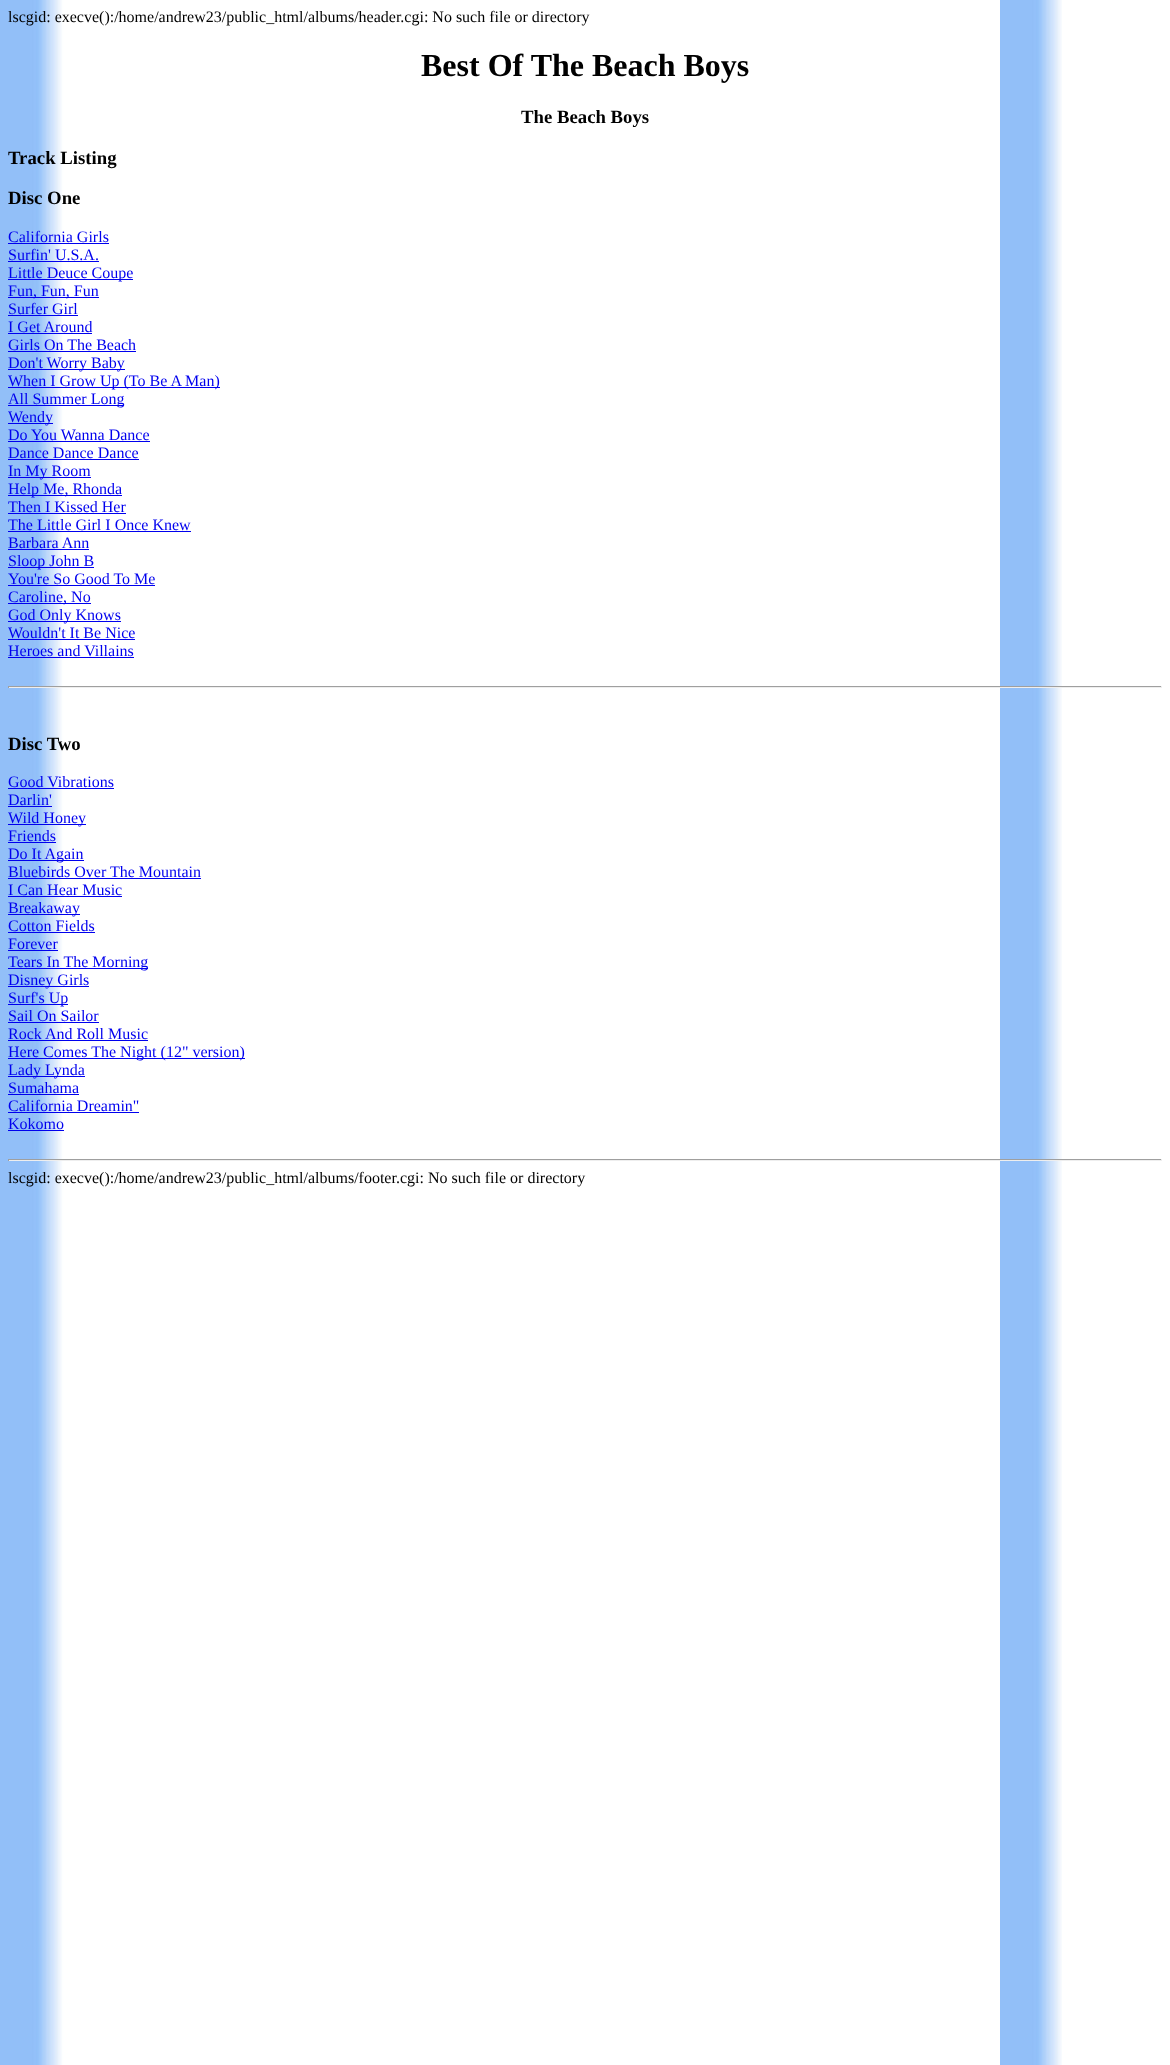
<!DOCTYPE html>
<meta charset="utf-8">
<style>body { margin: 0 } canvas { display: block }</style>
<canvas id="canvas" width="1170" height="2065"></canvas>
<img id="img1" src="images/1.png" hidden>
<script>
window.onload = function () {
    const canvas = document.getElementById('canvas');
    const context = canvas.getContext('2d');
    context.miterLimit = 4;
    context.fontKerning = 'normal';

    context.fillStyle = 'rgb(255, 255, 255)';
    context.fillRect(0, 0, 1170, 2065);
    context.drawImage(document.getElementById('img1'), 0, 0, 1062, 2065);
    context.fillStyle = 'rgb(0, 0, 238)';
    context.fillRect(8, 243, 101, 1);
    context.fillRect(8, 261, 91, 1);
    context.fillRect(8, 279, 125, 1);
    context.fillRect(8, 297, 91, 1);
    context.fillRect(8, 315, 70, 1);
    context.fillRect(8, 333, 84, 1);
    context.fillRect(8, 351, 128, 1);
    context.fillRect(8, 369, 117, 1);
    context.fillRect(8, 387, 212, 1);
    context.fillRect(8, 405, 116, 1);
    context.fillRect(8, 423, 45, 1);
    context.fillRect(8, 441, 142, 1);
    context.fillRect(8, 459, 131, 1);
    context.fillRect(8, 477, 83, 1);
    context.fillRect(8, 495, 114, 1);
    context.fillRect(8, 513, 118, 1);
    context.fillRect(8, 531, 183, 1);
    context.fillRect(8, 549, 81, 1);
    context.fillRect(8, 567, 86, 1);
    context.fillRect(8, 585, 147, 1);
    context.fillRect(8, 603, 83, 1);
    context.fillRect(8, 621, 113, 1);
    context.fillRect(8, 639, 127, 1);
    context.fillRect(8, 657, 126, 1);
    context.fillStyle = 'rgb(159, 159, 159)';
    context.fillRect(8, 686, 1154, 1);
    context.fillStyle = 'rgb(238, 238, 238)';
    context.fillRect(1161, 686, 1, 2);
    context.fillRect(8, 687, 1154, 1);
    context.fillStyle = 'rgb(159, 159, 159)';
    context.fillRect(8, 686, 1, 2);
    context.fillStyle = 'rgb(0, 0, 238)';
    context.fillRect(8, 788, 106, 1);
    context.fillRect(8, 806, 44, 1);
    context.fillRect(8, 824, 78, 1);
    context.fillRect(8, 842, 48, 1);
    context.fillRect(8, 860, 76, 1);
    context.fillRect(8, 878, 193, 1);
    context.fillRect(8, 896, 114, 1);
    context.fillRect(8, 914, 72, 1);
    context.fillRect(8, 932, 87, 1);
    context.fillRect(8, 950, 50, 1);
    context.fillRect(8, 968, 140, 1);
    context.fillRect(8, 986, 81, 1);
    context.fillRect(8, 1004, 60, 1);
    context.fillRect(8, 1022, 91, 1);
    context.fillRect(8, 1040, 140, 1);
    context.fillRect(8, 1058, 237, 1);
    context.fillRect(8, 1076, 77, 1);
    context.fillRect(8, 1094, 71, 1);
    context.fillRect(8, 1112, 131, 1);
    context.fillRect(8, 1130, 56, 1);
    context.fillStyle = 'rgb(159, 159, 159)';
    context.fillRect(8, 1159, 1154, 1);
    context.fillStyle = 'rgb(238, 238, 238)';
    context.fillRect(1161, 1159, 1, 2);
    context.fillRect(8, 1160, 1154, 1);
    context.fillStyle = 'rgb(159, 159, 159)';
    context.fillRect(8, 1159, 1, 2);
    context.font = '16px Liberation Serif';
    context.fillStyle = 'rgb(0, 0, 0)';
    context.fillText('lscgid: execve():/home/andrew23/public_html/albums/header.cgi: No such file or directory', 8, 22);
    context.font = 'bold 32px Liberation Serif';
    context.fillText('Best Of The Beach Boys', 421, 76);
    context.font = 'bold 18.75px Liberation Serif';
    context.fillText('The Beach Boys', 521, 123);
    context.fillText('Track Listing', 8, 164);
    context.fillText('Disc One', 8, 204);
    context.font = '16px Liberation Serif';
    context.fillStyle = 'rgb(0, 0, 238)';
    context.fillText('California Girls', 8, 242);
    context.fillText('Surfin\' U.S.A.', 8, 260);
    context.fillText('Little Deuce Coupe', 8, 278);
    context.fillText('Fun, Fun, Fun', 8, 296);
    context.fillText('Surfer Girl', 8, 314);
    context.fillText('I Get Around', 8, 332);
    context.fillText('Girls On The Beach', 8, 350);
    context.fillText('Don\'t Worry Baby', 8, 368);
    context.fillText('When I Grow Up (To Be A Man)', 8, 386);
    context.fillText('All Summer Long', 8, 404);
    context.fillText('Wendy', 8, 422);
    context.fillText('Do You Wanna Dance', 8, 440);
    context.fillText('Dance Dance Dance', 8, 458);
    context.fillText('In My Room', 8, 476);
    context.fillText('Help Me, Rhonda', 8, 494);
    context.fillText('Then I Kissed Her', 8, 512);
    context.fillText('The Little Girl I Once Knew', 8, 530);
    context.fillText('Barbara Ann', 8, 548);
    context.fillText('Sloop John B', 8, 566);
    context.fillText('You\'re So Good To Me', 8, 584);
    context.fillText('Caroline, No', 8, 602);
    context.fillText('God Only Knows', 8, 620);
    context.fillText('Wouldn\'t It Be Nice', 8, 638);
    context.fillText('Heroes and Villains', 8, 656);
    context.font = 'bold 18.75px Liberation Serif';
    context.fillStyle = 'rgb(0, 0, 0)';
    context.fillText('Disc Two', 8, 750);
    context.font = '16px Liberation Serif';
    context.fillStyle = 'rgb(0, 0, 238)';
    context.fillText('Good Vibrations', 8, 787);
    context.fillText('Darlin\'', 8, 805);
    context.fillText('Wild Honey', 8, 823);
    context.fillText('Friends', 8, 841);
    context.fillText('Do It Again', 8, 859);
    context.fillText('Bluebirds Over The Mountain', 8, 877);
    context.fillText('I Can Hear Music', 8, 895);
    context.fillText('Breakaway', 8, 913);
    context.fillText('Cotton Fields', 8, 931);
    context.fillText('Forever', 8, 949);
    context.fillText('Tears In The Morning', 8, 967);
    context.fillText('Disney Girls', 8, 985);
    context.fillText('Surf\'s Up', 8, 1003);
    context.fillText('Sail On Sailor', 8, 1021);
    context.fillText('Rock And Roll Music', 8, 1039);
    context.fillText('Here Comes The Night (12" version)', 8, 1057);
    context.fillText('Lady Lynda', 8, 1075);
    context.fillText('Sumahama', 8, 1093);
    context.fillText('California Dreamin"', 8, 1111);
    context.fillText('Kokomo', 8, 1129);
    context.fillStyle = 'rgb(0, 0, 0)';
    context.fillText('lscgid: execve():/home/andrew23/public_html/albums/footer.cgi: No such file or directory', 8, 1183);
};
</script>
